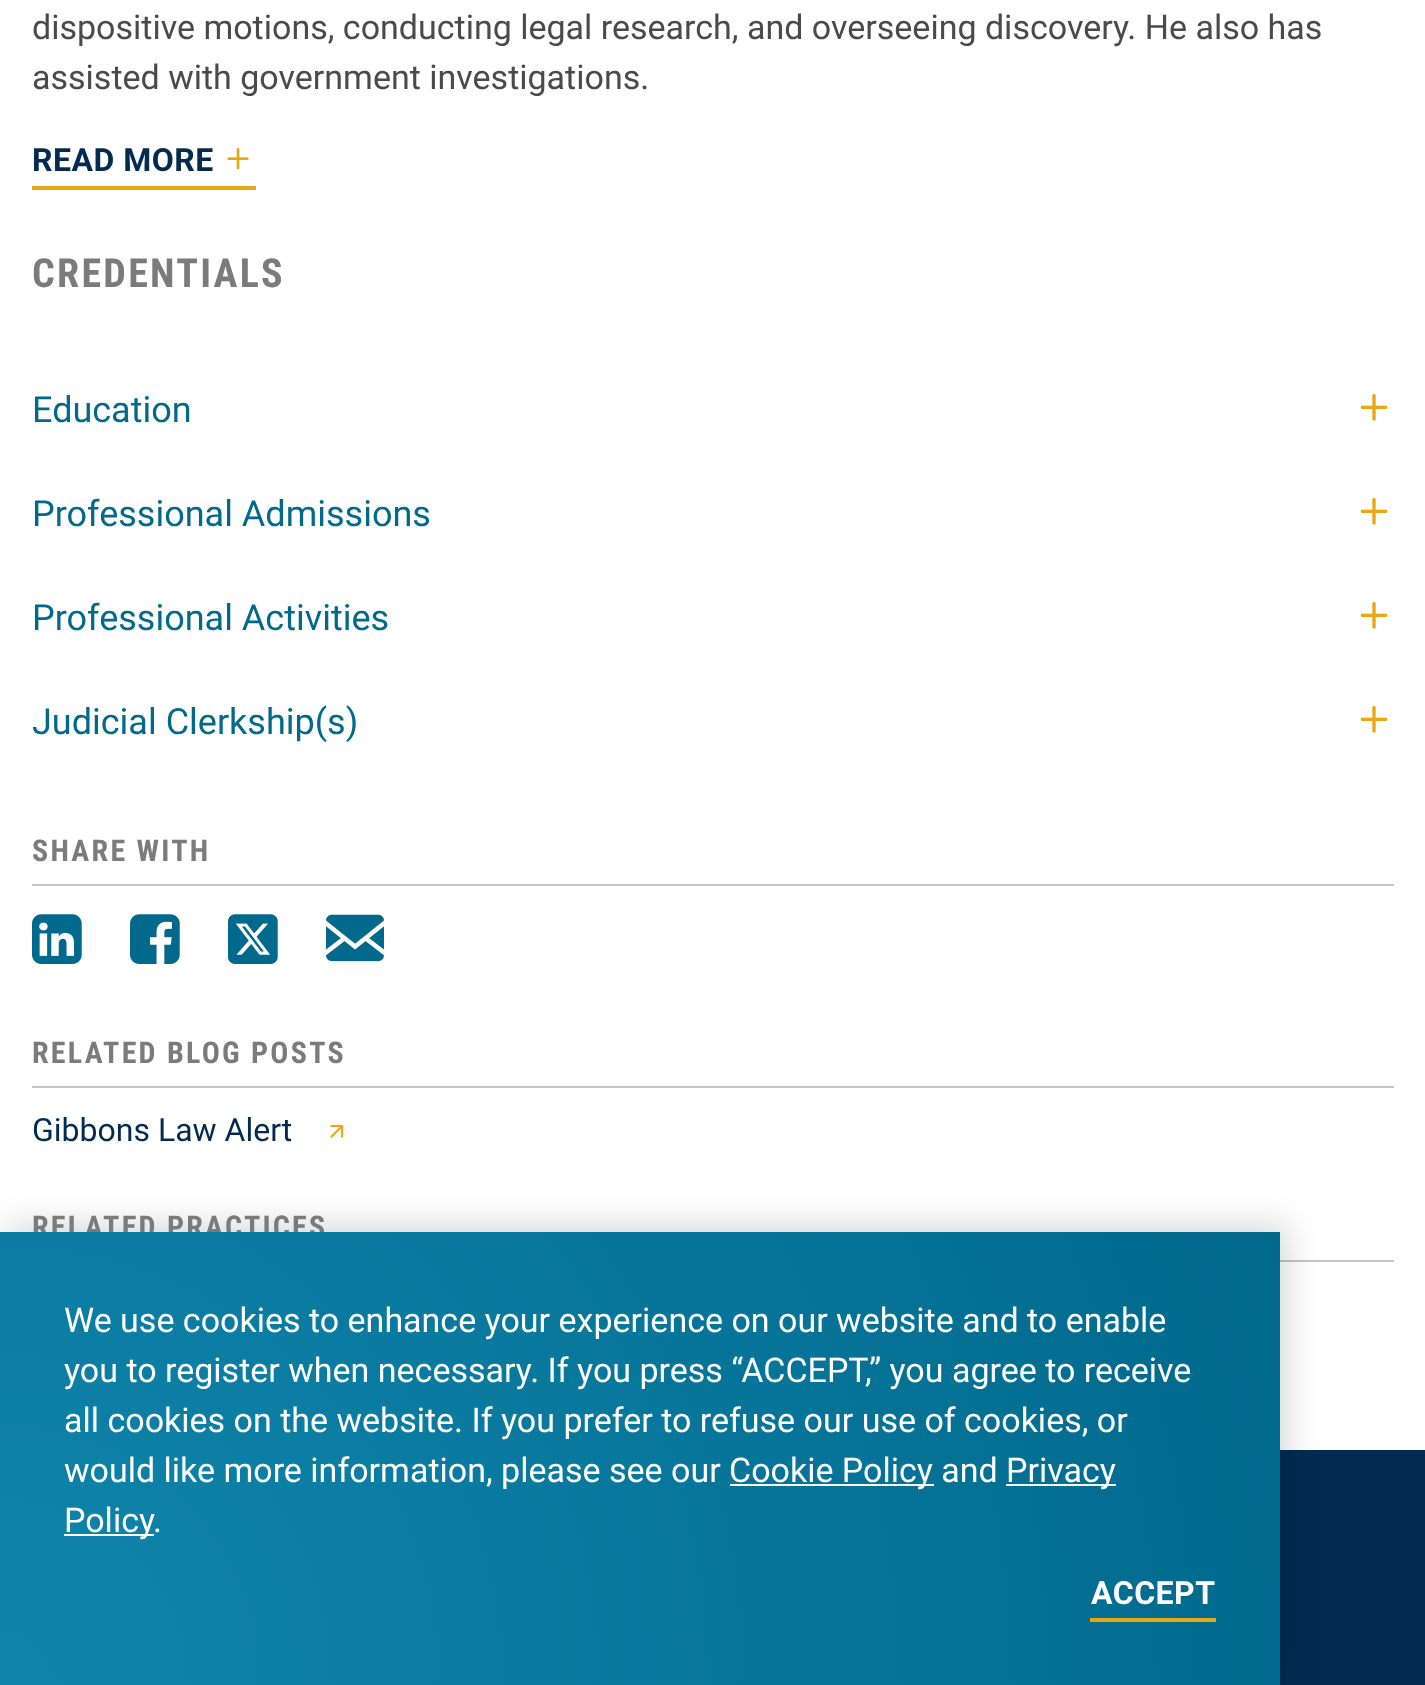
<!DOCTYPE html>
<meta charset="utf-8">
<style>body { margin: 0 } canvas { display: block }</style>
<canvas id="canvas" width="1425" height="1685"></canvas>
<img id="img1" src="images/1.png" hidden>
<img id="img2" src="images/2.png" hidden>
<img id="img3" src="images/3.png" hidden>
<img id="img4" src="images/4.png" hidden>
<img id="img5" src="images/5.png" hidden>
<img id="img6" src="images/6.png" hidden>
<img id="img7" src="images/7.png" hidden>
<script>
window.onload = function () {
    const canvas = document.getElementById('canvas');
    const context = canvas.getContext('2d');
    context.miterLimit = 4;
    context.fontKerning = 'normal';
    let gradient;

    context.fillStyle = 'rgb(255, 255, 255)';
    context.fillRect(0, 0, 1425, 1685);
    context.fillStyle = 'rgb(232, 167, 19)';
    context.fillRect(32, 186, 224, 4);
    context.drawImage(document.getElementById('img1'), 227, 148, 22, 22);
    context.drawImage(document.getElementById('img2'), 1360, 394, 28, 27);
    context.drawImage(document.getElementById('img2'), 1360, 498, 28, 27);
    context.drawImage(document.getElementById('img2'), 1360, 602, 28, 27);
    context.drawImage(document.getElementById('img2'), 1360, 706, 28, 27);
    context.fillStyle = 'rgb(198, 197, 196)';
    context.fillRect(32, 884, 1362, 2);
    context.drawImage(document.getElementById('img3'), 32, 914, 50, 50);
    context.drawImage(document.getElementById('img4'), 130, 914, 50, 50);
    context.drawImage(document.getElementById('img5'), 228, 914, 50, 50);
    context.drawImage(document.getElementById('img6'), 326, 914, 58, 48);
    context.fillRect(32, 1086, 1362, 2);
    context.drawImage(document.getElementById('img7'), 330, 1124, 14, 14);
    context.fillRect(1280, 1260, 114, 2);
    context.fillStyle = 'rgb(3, 43, 81)';
    context.fillRect(1280, 1450, 145, 235);
    context.fillStyle = 'rgba(0, 0, 0, 0.15)';
    context.filter = 'blur(16px)';
    context.beginPath();
    context.rect(8, 1224, 1280, 454);
    context.fill();
    context.filter = 'none';
    context.font = '34px Roboto';
    context.fillStyle = 'rgb(74, 74, 74)';
    context.fillText('dispositive motions, conducting legal research, and overseeing discovery. He also has', 32, 39);
    context.fillText('assisted with government investigations.', 32, 89);
    context.letterSpacing = '0.5px';
    context.font = 'bold 32px Roboto';
    context.fillStyle = 'rgb(3, 43, 81)';
    context.fillText('READ MORE', 32, 171);
    context.letterSpacing = '2.25px';
    context.font = 'bold 40px Roboto Condensed';
    context.fillStyle = 'rgb(124, 123, 123)';
    context.fillText('CREDENTIALS', 32, 287);
    context.letterSpacing = '0px';
    context.font = '36px Roboto';
    context.fillStyle = 'rgb(0, 105, 140)';
    context.fillText('Education', 32, 422);
    context.fillText('Professional Admissions', 32, 526);
    context.fillText('Professional Activities', 32, 630);
    context.fillText('Judicial Clerkship(s)', 32, 734);
    context.letterSpacing = '2.25px';
    context.font = 'bold 30px Roboto Condensed';
    context.fillStyle = 'rgb(124, 123, 123)';
    context.fillText('SHARE WITH', 32, 861);
    context.fillText('RELATED BLOG POSTS', 32, 1063);
    context.letterSpacing = '0px';
    context.font = '32px Roboto';
    context.fillStyle = 'rgb(3, 43, 81)';
    context.fillText('Gibbons Law Alert', 32, 1141);
    context.letterSpacing = '2.25px';
    context.font = 'bold 30px Roboto Condensed';
    context.fillStyle = 'rgb(124, 123, 123)';
    context.fillText('RELATED PRACTICES', 32, 1237);
    gradient = context.createRadialGradient(0, 1686, 0, 0, 1686, 1358);
    gradient.addColorStop(0, 'rgb(16, 133, 172)');
    gradient.addColorStop(1, 'rgb(0, 105, 140)');
    context.fillStyle = gradient;
    context.fillRect(0, 1232, 1280, 453);
    context.letterSpacing = '0px';
    context.font = '34px Roboto';
    context.fillStyle = 'rgb(255, 255, 255)';
    context.fillText('We use cookies to enhance your experience on our website and to enable', 64, 1332);
    context.fillText('you to register when necessary. If you press “ACCEPT,” you agree to receive', 64, 1382);
    context.fillText('all cookies on the website. If you prefer to refuse our use of cookies, or', 64, 1432);
    context.fillText('would like more information, please see our', 64, 1482);
    context.fillRect(730, 1484, 204, 2);
    context.fillText('Cookie Policy and', 729, 1482);
    context.fillRect(1006, 1484, 110, 2);
    context.fillText('Privacy', 1006, 1482);
    context.fillRect(64, 1534, 90, 2);
    context.fillText('Policy', 64, 1532);
    context.fillText('.', 153, 1532);
    context.fillStyle = 'rgb(232, 167, 19)';
    context.fillRect(1090, 1618, 126, 4);
    context.letterSpacing = '0.5px';
    context.font = 'bold 32px Roboto';
    context.fillStyle = 'rgb(255, 255, 255)';
    context.fillText('ACCEPT', 1091, 1604);
};
</script>
